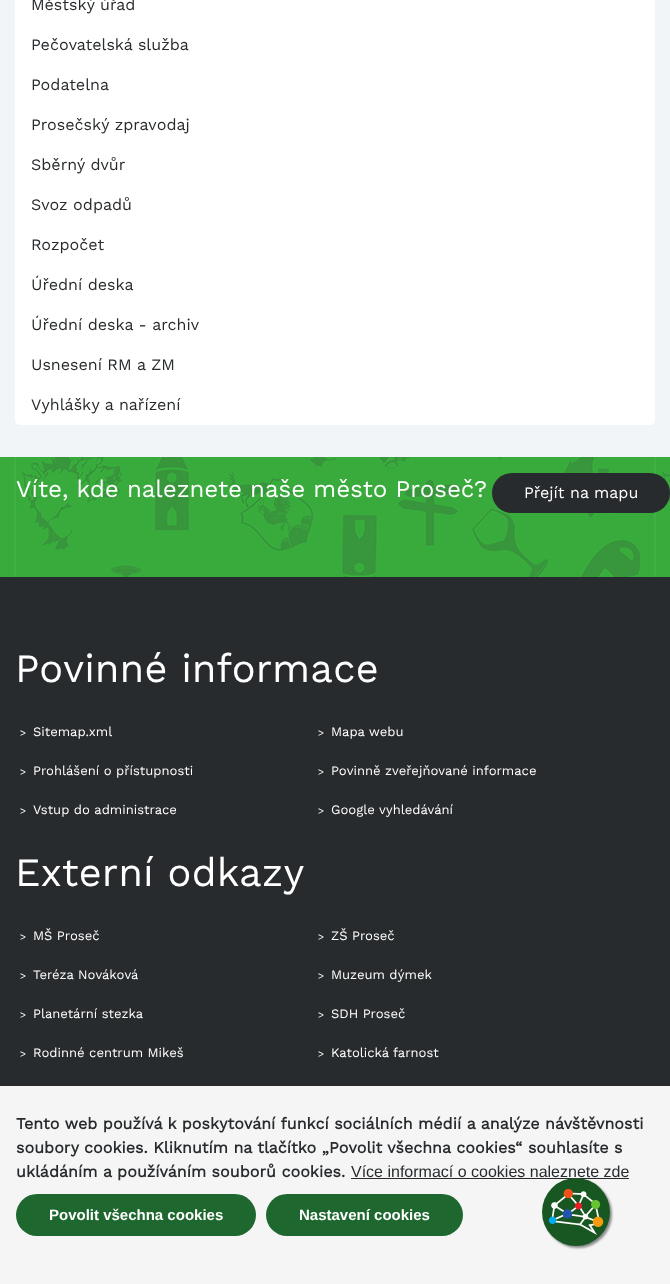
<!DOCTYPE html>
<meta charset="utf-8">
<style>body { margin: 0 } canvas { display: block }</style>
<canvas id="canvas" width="670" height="1284"></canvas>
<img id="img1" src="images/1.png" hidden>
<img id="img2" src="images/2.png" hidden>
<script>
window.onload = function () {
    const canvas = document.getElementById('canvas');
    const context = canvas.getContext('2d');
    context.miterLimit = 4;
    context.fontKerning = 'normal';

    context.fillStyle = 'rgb(242, 245, 247)';
    context.fillRect(0, 0, 670, 1284);
    context.fillStyle = 'rgb(255, 255, 255)';
    context.beginPath();
    context.roundRect(15, -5, 640, 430, 5);
    context.fill();
    context.fillStyle = 'rgb(40, 43, 45)';
    context.fillRect(0, 577, 670, 509);
    context.drawImage(document.getElementById('img1'), 0, 457, 670, 120);
    context.beginPath();
    context.roundRect(492, 473, 178, 40, 20);
    context.fill();
    context.fillStyle = 'rgb(245, 245, 245)';
    context.fillRect(0, 1086, 670, 198);
    context.fillStyle = 'rgb(40, 43, 45)';
    context.fillRect(351, 1178, 278, 1);
    context.fillStyle = 'rgb(30, 103, 46)';
    context.beginPath();
    context.roundRect(16, 1194, 240, 42, 21);
    context.fill();
    context.beginPath();
    context.roundRect(266, 1194, 197, 42, 21);
    context.fill();
    context.fillStyle = 'rgb(136, 136, 136)';
    context.filter = 'blur(1px)';
    context.beginPath();
    context.roundRect(544, 1180, 68, 68, 34);
    context.fill();
    context.filter = 'none';
    context.fillStyle = 'rgb(25, 87, 34)';
    context.beginPath();
    context.arc(576, 1212, 34, 0, 2 * Math.PI);
    context.fill();
    context.drawImage(document.getElementById('img2'), 548, 1188, 56, 47);
    context.font = '16px Work Sans';
    context.fillStyle = 'rgb(40, 43, 45)';
    context.fillText('Městský úřad', 31, 10);
    context.fillText('Pečovatelská služba', 31, 50);
    context.fillText('Podatelna', 31, 90);
    context.fillText('Prosečský zpravodaj', 31, 130);
    context.fillText('Sběrný dvůr', 31, 170);
    context.fillText('Svoz odpadů', 31, 210);
    context.fillText('Rozpočet', 31, 250);
    context.fillText('Úřední deska', 31, 290);
    context.fillText('Úřední deska - archiv', 31, 330);
    context.fillText('Usnesení RM a ZM', 31, 370);
    context.fillText('Vyhlášky a nařízení', 31, 410);
    context.font = '24px Work Sans';
    context.fillStyle = 'rgb(255, 255, 255)';
    context.fillText('Víte, kde naleznete naše město Proseč?', 16, 497);
    context.font = '16px Work Sans';
    context.fillText('Přejít na mapu', 524, 498);
    context.font = '40px Work Sans';
    context.fillText('Povinné informace', 15, 682);
    context.font = '10px Work Sans';
    context.fillText('>', 20, 736);
    context.font = '13px Work Sans';
    context.fillText('Sitemap.xml', 33, 736);
    context.font = '10px Work Sans';
    context.fillText('>', 318, 736);
    context.font = '13px Work Sans';
    context.fillText('Mapa webu', 331, 736);
    context.font = '10px Work Sans';
    context.fillText('>', 20, 775);
    context.font = '13px Work Sans';
    context.fillText('Prohlášení o přístupnosti', 33, 775);
    context.font = '10px Work Sans';
    context.fillText('>', 318, 775);
    context.font = '13px Work Sans';
    context.fillText('Povinně zveřejňované informace', 331, 775);
    context.font = '10px Work Sans';
    context.fillText('>', 20, 814);
    context.font = '13px Work Sans';
    context.fillText('Vstup do administrace', 33, 814);
    context.font = '10px Work Sans';
    context.fillText('>', 318, 814);
    context.font = '13px Work Sans';
    context.fillText('Google vyhledávání', 331, 814);
    context.font = '40px Work Sans';
    context.fillText('Externí odkazy', 15, 886);
    context.font = '10px Work Sans';
    context.fillText('>', 20, 940);
    context.font = '13px Work Sans';
    context.fillText('MŠ Proseč', 33, 940);
    context.font = '10px Work Sans';
    context.fillText('>', 318, 940);
    context.font = '13px Work Sans';
    context.fillText('ZŠ Proseč', 331, 940);
    context.font = '10px Work Sans';
    context.fillText('>', 20, 979);
    context.font = '13px Work Sans';
    context.fillText('Teréza Nováková', 33, 979);
    context.font = '10px Work Sans';
    context.fillText('>', 318, 979);
    context.font = '13px Work Sans';
    context.fillText('Muzeum dýmek', 331, 979);
    context.font = '10px Work Sans';
    context.fillText('>', 20, 1018);
    context.font = '13px Work Sans';
    context.fillText('Planetární stezka', 33, 1018);
    context.font = '10px Work Sans';
    context.fillText('>', 318, 1018);
    context.font = '13px Work Sans';
    context.fillText('SDH Proseč', 331, 1018);
    context.font = '10px Work Sans';
    context.fillText('>', 20, 1057);
    context.font = '13px Work Sans';
    context.fillText('Rodinné centrum Mikeš', 33, 1057);
    context.font = '10px Work Sans';
    context.fillText('>', 318, 1057);
    context.font = '13px Work Sans';
    context.fillText('Katolická farnost', 331, 1057);
    context.font = 'bold 16px Work Sans';
    context.fillStyle = 'rgb(40, 43, 45)';
    context.fillText('Tento web používá k poskytování funkcí sociálních médií a analýze návštěvnosti', 16, 1129);
    context.fillText('soubory cookies. Kliknutím na tlačítko „Povolit všechna cookies“ souhlasíte s', 16, 1153);
    context.fillText('ukládáním a používáním souborů cookies.', 16, 1177);
    context.font = '16px Liberation Sans';
    context.fillText('Více informací o cookies naleznete zde', 351, 1177);
    context.font = 'bold 15px Liberation Sans';
    context.fillStyle = 'rgb(255, 255, 255)';
    context.fillText('Povolit všechna cookies', 49, 1220);
    context.fillText('Nastavení cookies', 299, 1220);
};
</script>
